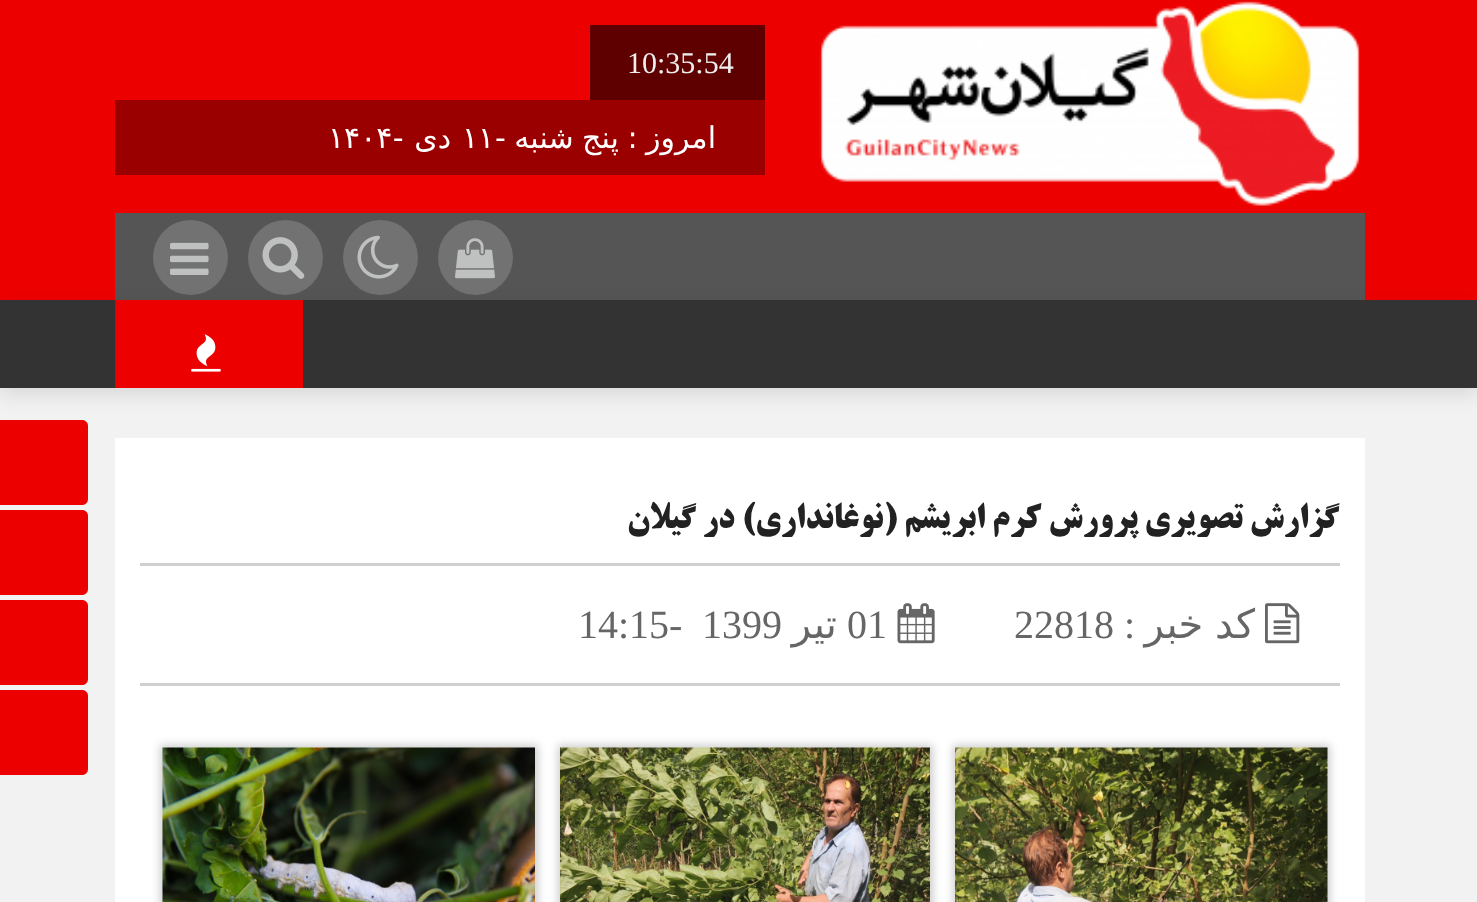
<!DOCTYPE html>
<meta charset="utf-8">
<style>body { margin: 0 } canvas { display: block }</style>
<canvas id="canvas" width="1477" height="902"></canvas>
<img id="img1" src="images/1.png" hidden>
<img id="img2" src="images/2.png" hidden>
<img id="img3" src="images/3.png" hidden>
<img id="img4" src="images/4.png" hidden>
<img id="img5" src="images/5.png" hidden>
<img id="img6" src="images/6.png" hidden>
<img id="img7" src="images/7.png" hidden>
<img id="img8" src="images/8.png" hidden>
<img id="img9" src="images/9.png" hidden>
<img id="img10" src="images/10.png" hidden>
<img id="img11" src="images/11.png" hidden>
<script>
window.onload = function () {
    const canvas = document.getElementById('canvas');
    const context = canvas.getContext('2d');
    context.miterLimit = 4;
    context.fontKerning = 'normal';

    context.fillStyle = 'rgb(242, 242, 242)';
    context.fillRect(0, 0, 1477, 902);
    context.fillStyle = 'rgb(237, 0, 0)';
    context.fillRect(0, 0, 1477, 300);
    context.drawImage(document.getElementById('img1'), 819, 1, 541, 205);
    context.fillStyle = 'rgb(95, 0, 0)';
    context.fillRect(590, 25, 175, 75);
    context.fillStyle = 'rgb(154, 0, 0)';
    context.fillRect(115, 100, 650, 75);
    context.fillStyle = 'rgb(85, 85, 85)';
    context.fillRect(115, 213, 1250, 87);
    context.fillStyle = 'rgb(114, 114, 114)';
    context.beginPath();
    context.arc(475.5, 257.5, 37.5, 0, 2 * Math.PI);
    context.fill();
    context.drawImage(document.getElementById('img2'), 455, 238, 40, 41);
    context.beginPath();
    context.arc(380.5, 257.5, 37.5, 0, 2 * Math.PI);
    context.fill();
    context.drawImage(document.getElementById('img3'), 357, 235, 42, 44);
    context.beginPath();
    context.arc(285.5, 257.5, 37.5, 0, 2 * Math.PI);
    context.fill();
    context.drawImage(document.getElementById('img4'), 262, 237, 43, 42);
    context.beginPath();
    context.arc(190.5, 257.5, 37.5, 0, 2 * Math.PI);
    context.fill();
    context.drawImage(document.getElementById('img5'), 170, 242, 39, 33);
    context.fillStyle = 'rgba(0, 0, 0, 0.1)';
    context.filter = 'blur(10px)';
    context.beginPath();
    context.rect(0, 308, 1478, 87);
    context.fill();
    context.filter = 'none';
    context.fillStyle = 'rgb(51, 51, 51)';
    context.fillRect(0, 300, 1477, 88);
    context.fillStyle = 'rgb(237, 0, 0)';
    context.fillRect(118, 300, 185, 88);
    context.fillStyle = 'rgb(230, 0, 0)';
    context.fillRect(115, 300, 3, 88);
    context.drawImage(document.getElementById('img6'), 191, 334, 30, 38);
    context.fillStyle = 'rgb(255, 255, 255)';
    context.fillRect(115, 438, 1250, 464);
    context.fillStyle = 'rgb(207, 207, 207)';
    context.fillRect(140, 563, 1200, 3);
    context.fillRect(140, 683, 1200, 3);
    context.drawImage(document.getElementById('img7'), 1265, 603, 35, 41);
    context.drawImage(document.getElementById('img8'), 897, 603, 38, 41);
    context.fillStyle = 'rgba(0, 0, 0, 0.2)';
    context.filter = 'blur(4px)';
    context.beginPath();
    context.rect(953, 745, 377, 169);
    context.fill();
    context.filter = 'none';
    context.drawImage(document.getElementById('img9'), 955, 747, 373, 155);
    context.filter = 'blur(4px)';
    context.beginPath();
    context.rect(558, 745, 375, 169);
    context.fill();
    context.filter = 'none';
    context.drawImage(document.getElementById('img10'), 560, 747, 370, 155);
    context.filter = 'blur(4px)';
    context.beginPath();
    context.rect(160, 745, 378, 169);
    context.fill();
    context.filter = 'none';
    context.drawImage(document.getElementById('img11'), 162, 747, 373, 155);
    context.fillStyle = 'rgb(237, 0, 0)';
    context.beginPath();
    context.moveTo(-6, 420);
    context.lineTo(82, 420);
    context.bezierCurveTo(85.5, 420, 88, 422.5, 88, 426);
    context.lineTo(88, 499);
    context.bezierCurveTo(88, 502.5, 85.5, 505, 82, 505);
    context.lineTo(-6, 505);
    context.closePath();
    context.fill();
    context.beginPath();
    context.moveTo(-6, 510);
    context.lineTo(82, 510);
    context.bezierCurveTo(85.5, 510, 88, 512.5, 88, 516);
    context.lineTo(88, 589);
    context.bezierCurveTo(88, 592.5, 85.5, 595, 82, 595);
    context.lineTo(-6, 595);
    context.closePath();
    context.fill();
    context.beginPath();
    context.moveTo(-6, 600);
    context.lineTo(82, 600);
    context.bezierCurveTo(85.5, 600, 88, 602.5, 88, 606);
    context.lineTo(88, 679);
    context.bezierCurveTo(88, 682.5, 85.5, 685, 82, 685);
    context.lineTo(-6, 685);
    context.closePath();
    context.fill();
    context.beginPath();
    context.moveTo(-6, 690);
    context.lineTo(82, 690);
    context.bezierCurveTo(85.5, 690, 88, 692.5, 88, 696);
    context.lineTo(88, 769);
    context.bezierCurveTo(88, 772.5, 85.5, 775, 82, 775);
    context.lineTo(-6, 775);
    context.closePath();
    context.fill();
    context.font = '30px Liberation Serif';
    context.fillStyle = 'rgb(238, 238, 238)';
    context.fillText('10:35:54', 627, 73);
    context.wordSpacing = '-1px';
    context.direction = 'rtl';
    context.font = '30px DejaVu Sans';
    context.fillStyle = 'rgb(255, 255, 255)';
    context.fillText('امروز : پنج شنبه -', 716, 148);
    context.wordSpacing = '0px';
    context.direction = 'ltr';
    context.fillText('۱۱', 462, 148);
    context.wordSpacing = '1px';
    context.direction = 'rtl';
    context.fillText('دی -', 451, 148);
    context.wordSpacing = '0px';
    context.direction = 'ltr';
    context.fillText('۱۴۰۴', 328, 148);
    context.direction = 'rtl';
    context.font = 'bold 35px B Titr';
    context.fillStyle = 'rgb(34, 34, 34)';
    context.fillText('گزارش تصویری پرورش کرم ابریشم (نوغانداری) در گیلان', 1339, 528);
    context.wordSpacing = '-1px';
    context.font = '40px DejaVu Sans';
    context.fillStyle = 'rgb(102, 102, 102)';
    context.fillText('کد خبر', 1255, 638);
    context.wordSpacing = '0px';
    context.font = '40px Liberation Serif';
    context.fillText(':', 1135, 638);
    context.direction = 'ltr';
    context.fillText('22818', 1014, 638);
    context.fillText('01', 847, 638);
    context.direction = 'rtl';
    context.font = '40px DejaVu Sans';
    context.fillText('تیر', 837, 638);
    context.direction = 'ltr';
    context.font = '40px Liberation Serif';
    context.fillText('1399', 702, 638);
    context.fillText('14:15-', 578, 638);
};
</script>
